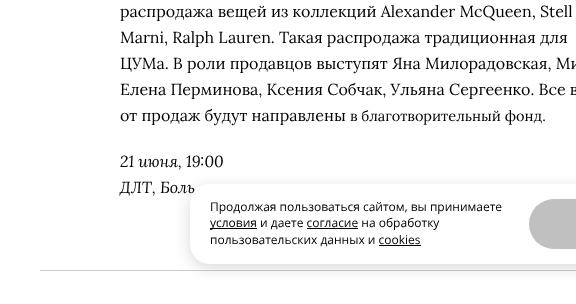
<!DOCTYPE html>
<meta charset="utf-8">
<style>body { margin: 0 } canvas { display: block }</style>
<canvas id="canvas" width="576" height="304"></canvas>
<script>
window.onload = function () {
    const canvas = document.getElementById('canvas');
    const context = canvas.getContext('2d');
    context.miterLimit = 4;
    context.fontKerning = 'normal';

    context.fillStyle = 'rgb(255, 255, 255)';
    context.fillRect(0, 0, 576, 304);
    context.fillStyle = 'rgb(205, 205, 205)';
    context.fillRect(40, 270, 536, 1);
    context.fillStyle = 'rgba(0, 0, 0, 0.15)';
    context.filter = 'blur(7.5px)';
    context.beginPath();
    context.roundRect(190, 188, 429, 80, 20);
    context.fill();
    context.filter = 'none';
    context.font = '16px Lora';
    context.fillStyle = 'rgb(0, 0, 0)';
    context.fillText('распродажа вещей из коллекций Alexander McQueen, Stell', 120, 17);
    context.fillText('Marni, Ralph Lauren. Такая распродажа традиционная для', 120, 43);
    context.fillText('ЦУМа. В роли продавцов выступят Яна Милорадовская, Ми', 120, 69);
    context.fillText('Елена Перминова, Ксения Собчак, Ульяна Сергеенко. Все в', 120, 95);
    context.fillText('от продаж будут направлены', 120, 121);
    context.font = '14.5px Lora';
    context.fillText('в благотворительный фонд.', 350, 121);
    context.font = 'italic 16px Lora';
    context.fillText('21 июня, 19:00', 120, 167);
    context.fillText('ДЛТ, Боль', 120, 193);
    context.fillStyle = 'rgb(255, 255, 255)';
    context.beginPath();
    context.roundRect(190, 184, 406, 80, 20);
    context.fill();
    context.font = '12px Open Sans';
    context.fillStyle = 'rgb(0, 0, 0)';
    context.fillText('Продолжая пользоваться сайтом, вы принимаете', 210, 211);
    context.fillRect(210, 228, 47, 1);
    context.fillText('условия и даете согласие на обработку', 210, 227);
    context.fillRect(307, 228, 51, 1);
    context.fillText('пользовательских данных и cookies', 210, 244);
    context.fillRect(379, 245, 42, 1);
    context.fillStyle = 'rgb(192, 192, 192)';
    context.beginPath();
    context.roundRect(529, 199, 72, 50, 25);
    context.fill();
};
</script>
